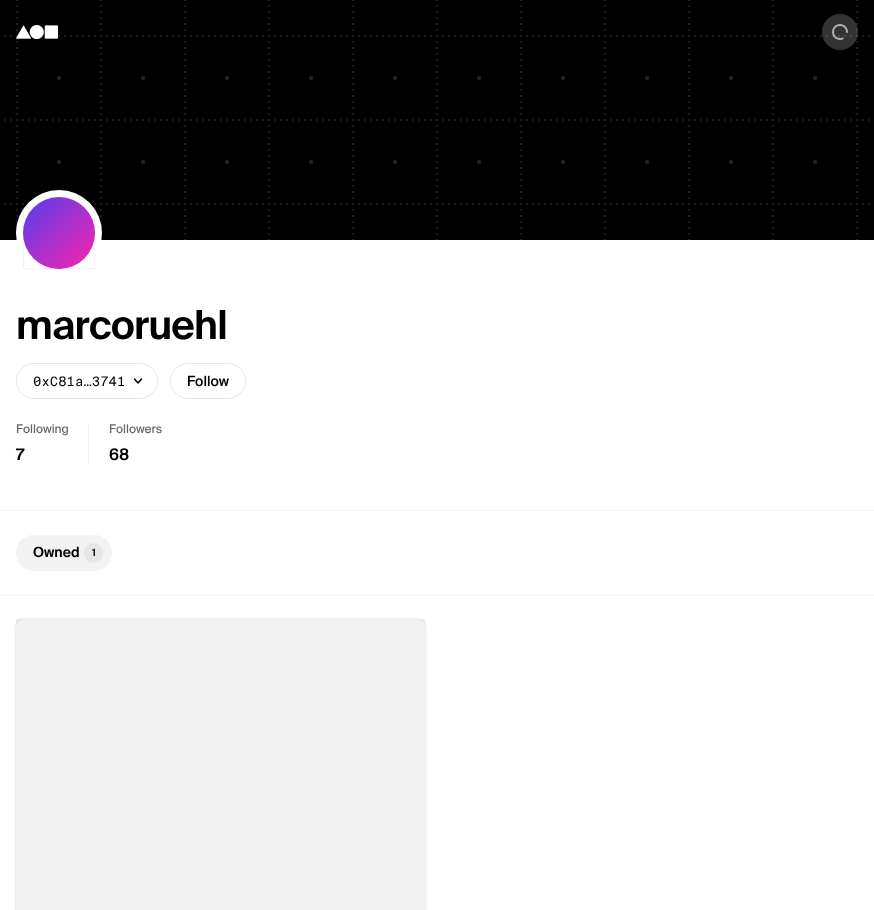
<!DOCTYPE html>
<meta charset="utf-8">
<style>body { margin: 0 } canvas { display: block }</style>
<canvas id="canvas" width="874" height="910"></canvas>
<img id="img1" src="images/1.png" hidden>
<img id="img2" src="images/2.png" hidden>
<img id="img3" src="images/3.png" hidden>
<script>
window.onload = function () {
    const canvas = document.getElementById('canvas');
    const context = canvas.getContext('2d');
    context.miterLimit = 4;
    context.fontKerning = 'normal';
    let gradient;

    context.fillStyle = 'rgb(255, 255, 255)';
    context.fillRect(0, 0, 874, 910);
    context.drawImage(document.getElementById('img1'), 0, 0, 874, 240);
    context.beginPath();
    context.arc(59, 233, 43, 0, 2 * Math.PI);
    context.fill();
    gradient = context.createLinearGradient(23, 197, 95, 269);
    gradient.addColorStop(0, 'rgb(82, 63, 239)');
    gradient.addColorStop(1, 'rgb(253, 34, 173)');
    context.fillStyle = gradient;
    context.beginPath();
    context.arc(59, 233, 36, 0, 2 * Math.PI);
    context.fill();
    context.strokeStyle = 'rgba(0, 0, 0, 0.05)';
    context.strokeRect(23.5, 197.5, 71, 71);
    context.drawImage(document.getElementById('img2'), 16, 25, 42, 14);
    context.fillStyle = 'rgba(255, 255, 255, 0.2)';
    context.beginPath();
    context.arc(840, 32, 18, 0, 2 * Math.PI);
    context.fill();
    context.drawImage(document.getElementById('img3'), 832, 24, 16, 16);
    context.beginPath();
    context.roundRect(16.5, 363.5, 141, 35, 17.5);
    context.strokeStyle = 'rgb(230, 230, 230)';
    context.stroke();
    context.beginPath();
    context.moveTo(134.5, 379);
    context.lineTo(138, 383);
    context.lineTo(141.5, 379);
    context.strokeStyle = 'rgb(0, 0, 0)';
    context.lineWidth = 1.5;
    context.lineCap = 'round';
    context.lineJoin = 'round';
    context.stroke();
    context.beginPath();
    context.roundRect(170.5, 363.5, 75, 35, 17.5);
    context.strokeStyle = 'rgb(230, 230, 230)';
    context.lineWidth = 1;
    context.lineJoin = 'miter';
    context.stroke();
    context.fillStyle = 'rgb(242, 242, 242)';
    context.fillRect(88, 423, 1, 40);
    context.fillRect(0, 595, 874, 1);
    context.fillRect(0, 510, 874, 1);
    context.beginPath();
    context.roundRect(16, 535, 96, 36, 18);
    context.fill();
    context.fillStyle = 'rgb(230, 230, 230)';
    context.beginPath();
    context.roundRect(84, 543, 19, 20, 9.5);
    context.fill();
    context.fillStyle = 'rgba(0, 0, 0, 0.05)';
    context.filter = 'blur(2.5px)';
    context.beginPath();
    context.roundRect(16, 621, 409, 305, 8);
    context.fill();
    context.filter = 'none';
    context.fillStyle = 'rgba(0, 0, 0, 0.15)';
    context.filter = 'blur(1px)';
    context.beginPath();
    context.roundRect(16, 619, 409, 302, 8);
    context.fill();
    context.filter = 'none';
    context.fillStyle = 'rgb(255, 255, 255)';
    context.beginPath();
    context.roundRect(16, 619, 409, 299, 8);
    context.fill();
    context.fillStyle = 'rgba(0, 0, 0, 0.05)';
    context.fillRect(16, 619, 409, 291);
    context.letterSpacing = '-0.75px';
    context.font = '600 40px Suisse';
    context.fillStyle = 'rgb(0, 0, 0)';
    context.fillText('marcoruehl', 16, 339);
    context.letterSpacing = '0px';
    context.font = '13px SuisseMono';
    context.fillText('0xC81a…3741', 33, 386);
    context.font = '500 14px Suisse';
    context.fillText('Follow', 187, 386);
    context.font = '12px Suisse';
    context.fillStyle = 'rgb(102, 102, 102)';
    context.fillText('Following', 16, 433);
    context.font = '600 16px Suisse';
    context.fillStyle = 'rgb(0, 0, 0)';
    context.fillText('7', 16, 460);
    context.font = '12px Suisse';
    context.fillStyle = 'rgb(102, 102, 102)';
    context.fillText('Followers', 109, 433);
    context.font = '600 16px Suisse';
    context.fillStyle = 'rgb(0, 0, 0)';
    context.fillText('68', 109, 460);
    context.font = '600 14px Suisse';
    context.fillText('Owned', 33, 557);
    context.font = '600 10px Suisse';
    context.fillText('1', 92, 556);
};
</script>
